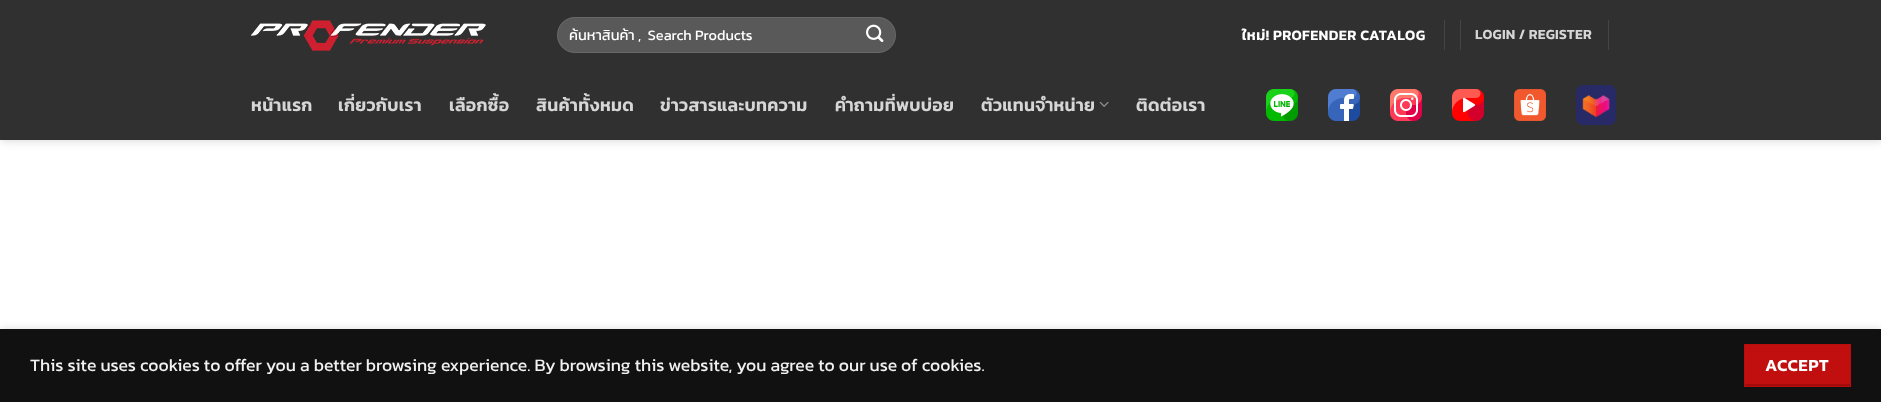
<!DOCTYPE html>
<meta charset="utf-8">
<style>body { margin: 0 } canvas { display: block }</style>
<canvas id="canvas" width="1881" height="402"></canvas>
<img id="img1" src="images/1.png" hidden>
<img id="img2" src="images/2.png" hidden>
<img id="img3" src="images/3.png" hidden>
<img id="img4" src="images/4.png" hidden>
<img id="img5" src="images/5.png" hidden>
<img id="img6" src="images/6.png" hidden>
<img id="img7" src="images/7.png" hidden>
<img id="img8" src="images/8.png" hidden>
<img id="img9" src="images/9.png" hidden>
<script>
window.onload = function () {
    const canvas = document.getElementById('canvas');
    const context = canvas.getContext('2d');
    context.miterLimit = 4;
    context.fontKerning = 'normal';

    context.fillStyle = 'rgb(255, 255, 255)';
    context.fillRect(0, 0, 1881, 402);
    context.fillStyle = 'rgba(0, 0, 0, 0.15)';
    context.filter = 'blur(5px)';
    context.beginPath();
    context.rect(1, 1, 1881, 140);
    context.fill();
    context.filter = 'none';
    context.fillStyle = 'rgb(48, 48, 48)';
    context.fillRect(0, 0, 1881, 140);
    context.drawImage(document.getElementById('img1'), 251, 20, 235, 31);
    context.fillStyle = 'rgb(89, 89, 89)';
    context.beginPath();
    context.roundRect(557, 17, 339, 36, 18);
    context.fill();
    context.beginPath();
    context.roundRect(557.5, 17.5, 338, 35, 17.5);
    context.strokeStyle = 'rgba(255, 255, 255, 0.09)';
    context.stroke();
    context.drawImage(document.getElementById('img2'), 866, 24, 18, 18);
    context.fillStyle = 'rgb(69, 69, 69)';
    context.fillRect(1444, 20, 1, 30);
    context.fillRect(1460, 20, 1, 30);
    context.fillRect(1608, 20, 1, 30);
    context.drawImage(document.getElementById('img3'), 1099, 101, 10, 6);
    context.drawImage(document.getElementById('img4'), 1266, 89, 32, 32);
    context.drawImage(document.getElementById('img5'), 1328, 89, 32, 32);
    context.drawImage(document.getElementById('img6'), 1390, 89, 32, 32);
    context.drawImage(document.getElementById('img7'), 1452, 89, 32, 32);
    context.drawImage(document.getElementById('img8'), 1514, 89, 32, 32);
    context.drawImage(document.getElementById('img9'), 1576, 85, 40, 40);
    context.fillStyle = 'rgba(0, 0, 0, 0.14)';
    context.filter = 'blur(4.5px)';
    context.beginPath();
    context.rect(0, 329, 1881, 73);
    context.fill();
    context.filter = 'none';
    context.fillStyle = 'rgb(17, 17, 17)';
    context.fillRect(0, 329, 1881, 73);
    context.fillStyle = 'rgb(193, 14, 14)';
    context.fillRect(1745, 345, 105, 39);
    context.strokeStyle = 'rgb(183, 13, 13)';
    context.strokeRect(1744.5, 344.5, 106, 42);
    context.save();
    context.beginPath();
    context.rect(1745, 345, 105, 41);
    context.clip();
    context.fillStyle = 'rgb(164, 12, 12)';
    context.beginPath();
    context.moveTo(1646, 246);
    context.lineTo(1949, 246);
    context.lineTo(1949, 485);
    context.lineTo(1646, 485);
    context.closePath();
    context.moveTo(1745, 343);
    context.lineTo(1850, 343);
    context.lineTo(1850, 384);
    context.lineTo(1745, 384);
    context.closePath();
    context.fill('evenodd');
    context.restore();
    context.save();
    context.beginPath();
    context.rect(569, 24, 311, 22);
    context.clip();
    context.font = '14.5px Kanit';
    context.fillStyle = 'rgb(255, 255, 255)';
    context.fillText('ค้นหาสินค้า ,  Search Products', 569, 40);
    context.restore();
    context.letterSpacing = '0.4px';
    context.font = '600 14.5px Kanit';
    context.fillStyle = 'rgb(255, 255, 255)';
    context.fillText('ใหม่!', 1242, 40);
    context.fillText('PROFENDER CATALOG', 1273, 40);
    context.letterSpacing = '0.25px';
    context.font = '600 14px Kanit';
    context.fillStyle = 'rgb(214, 214, 214)';
    context.fillText('LOGIN / REGISTER', 1475, 39);
    context.letterSpacing = '0.3px';
    context.font = '600 17.6px Kanit';
    context.fillText('หน้าแรก', 251, 111);
    context.fillText('เกี่ยวกับเรา', 338, 111);
    context.fillText('เลือกซื้อ', 449, 111);
    context.fillText('สินค้าทั้งหมด', 536, 111);
    context.fillText('ข่าวสารและบทความ', 660, 111);
    context.fillText('คำถามที่พบบ่อย', 835, 111);
    context.fillText('ตัวแทนจำหน่าย', 981, 111);
    context.fillText('ติดต่อเรา', 1136, 111);
    context.letterSpacing = '0px';
    context.font = '17.6px Kanit';
    context.fillStyle = 'rgb(241, 241, 241)';
    context.fillText('This site uses cookies to offer you a better browsing experience. By browsing this website, you agree to our use of cookies.', 30, 371);
    context.letterSpacing = '0.5px';
    context.font = '600 17px Kanit';
    context.fillStyle = 'rgb(255, 255, 255)';
    context.fillText('ACCEPT', 1765, 371);
};
</script>
